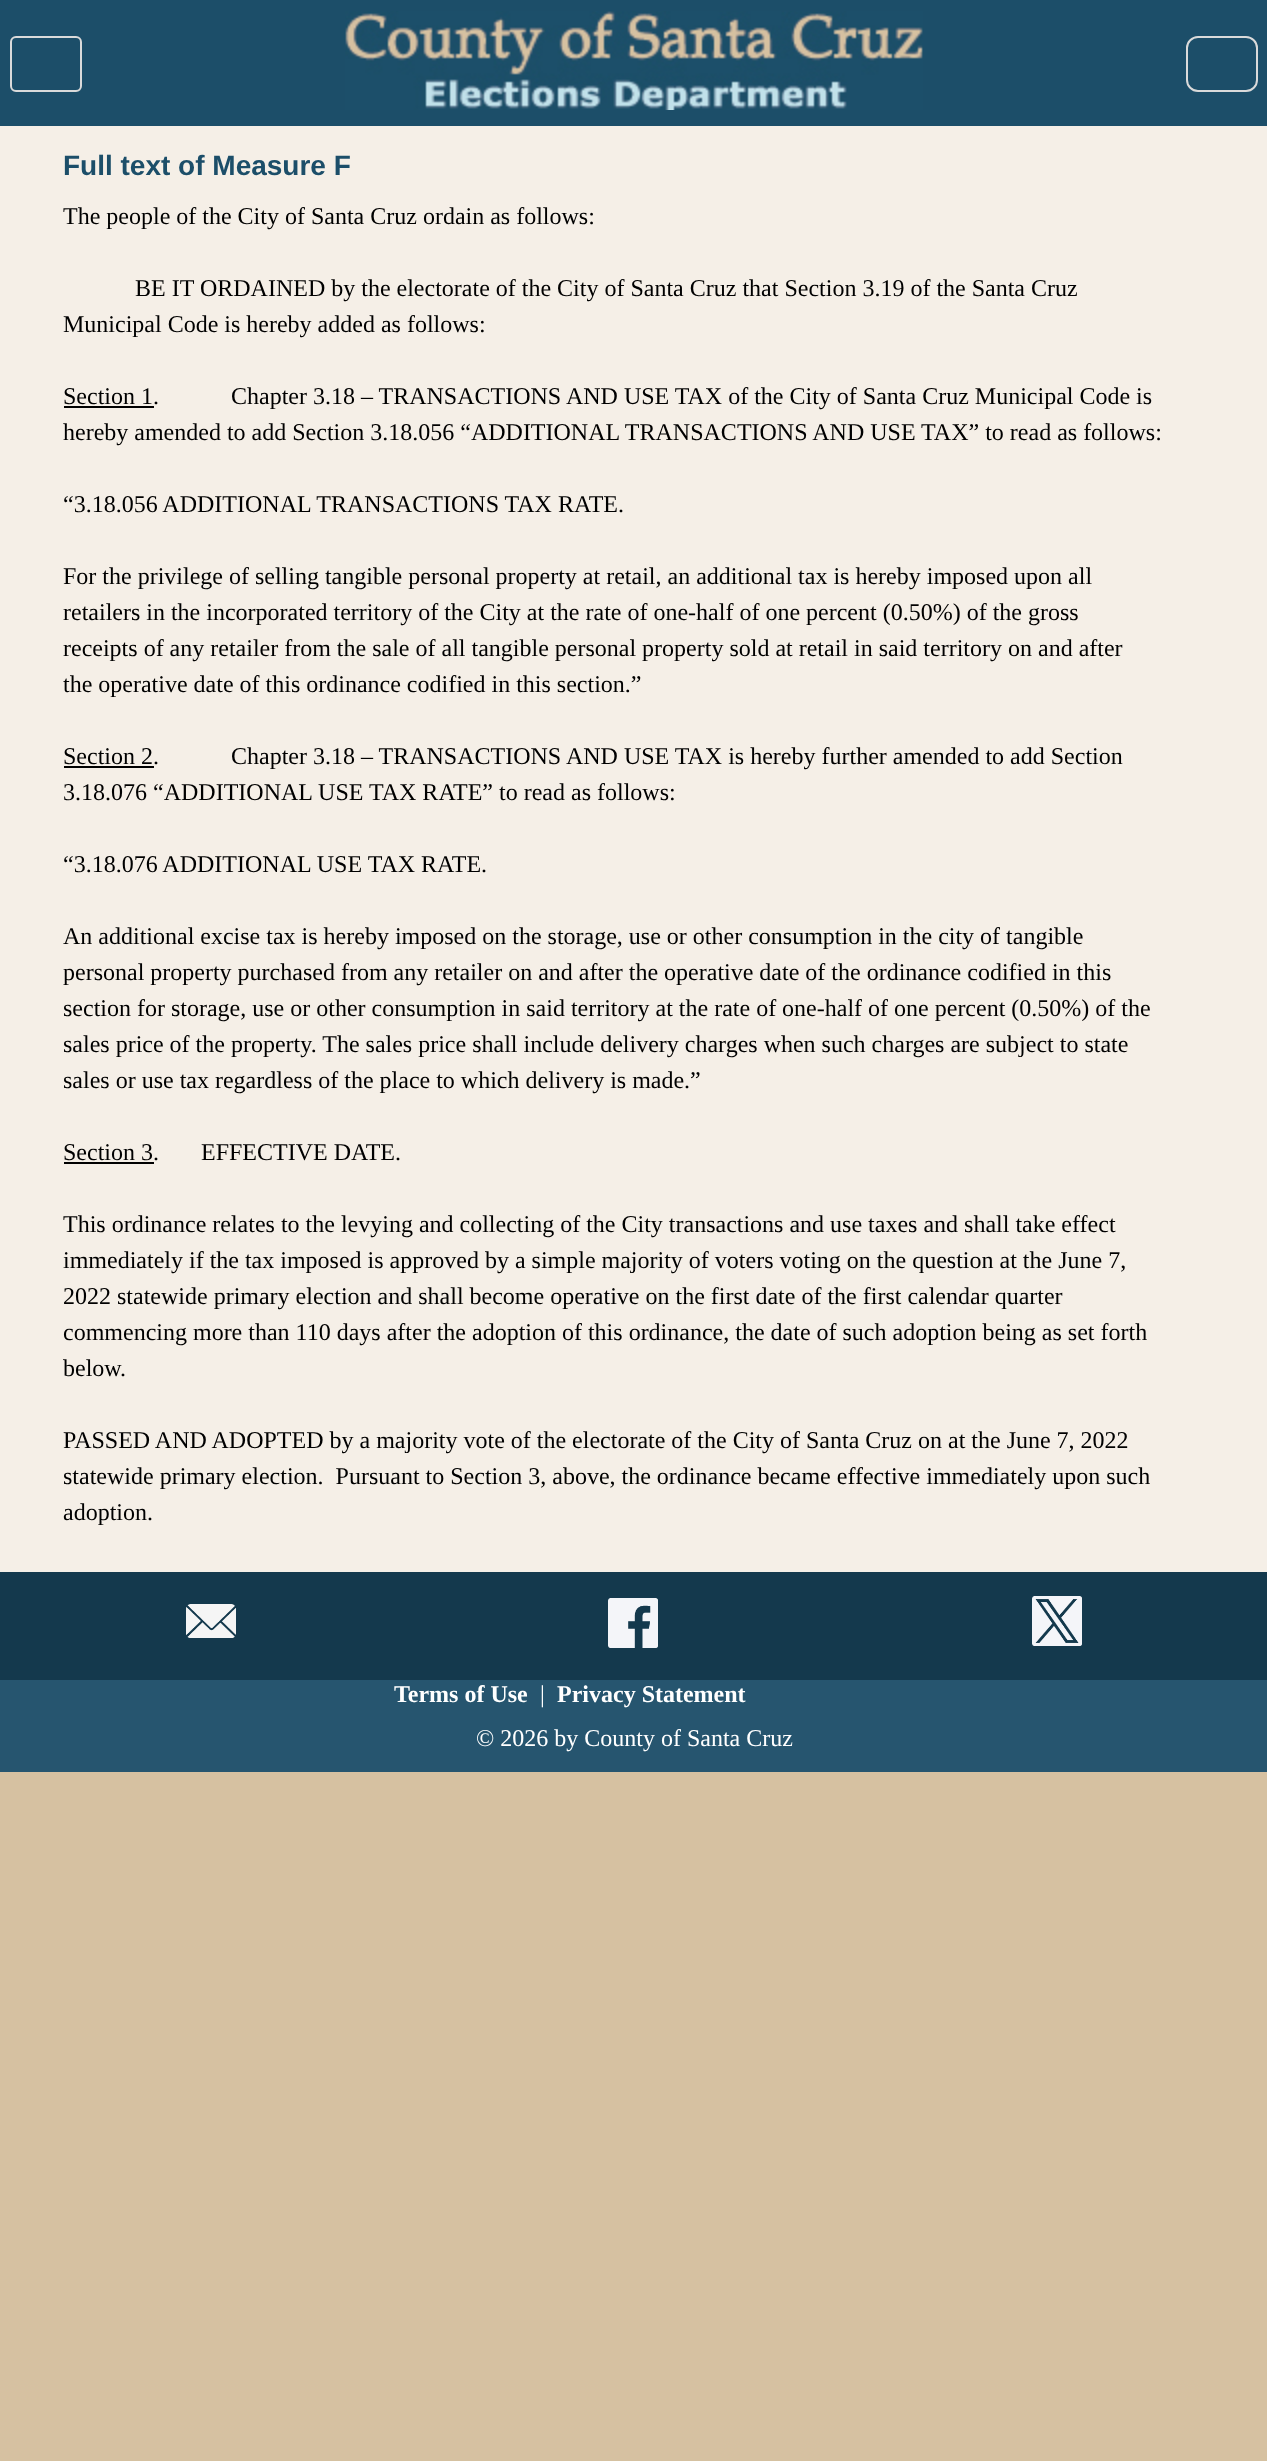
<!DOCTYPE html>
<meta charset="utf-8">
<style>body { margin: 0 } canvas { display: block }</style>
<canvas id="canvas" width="1267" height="2461"></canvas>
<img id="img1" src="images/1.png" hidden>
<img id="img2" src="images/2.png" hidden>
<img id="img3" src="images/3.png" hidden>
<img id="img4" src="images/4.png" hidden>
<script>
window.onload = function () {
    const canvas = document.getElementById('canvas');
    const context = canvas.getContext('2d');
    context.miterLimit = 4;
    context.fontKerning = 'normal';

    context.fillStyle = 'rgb(214, 193, 161)';
    context.fillRect(0, 0, 1267, 2461);
    context.fillStyle = 'rgb(28, 78, 105)';
    context.fillRect(0, 0, 1267, 126);
    context.beginPath();
    context.roundRect(11, 37, 70, 54, 5);
    context.strokeStyle = 'rgb(218, 218, 218)';
    context.lineWidth = 2;
    context.stroke();
    context.drawImage(document.getElementById('img1'), 345, 11, 578, 99);
    context.beginPath();
    context.roundRect(1187, 37, 70, 54, 11);
    context.stroke();
    context.fillStyle = 'rgb(245, 239, 231)';
    context.fillRect(0, 126, 1267, 1446);
    context.fillStyle = 'rgb(0, 0, 0)';
    context.fillRect(64, 406, 90, 2);
    context.fillRect(64, 766, 90, 2);
    context.fillRect(64, 1162, 90, 2);
    context.fillStyle = 'rgb(38, 85, 111)';
    context.fillRect(0, 1680, 1267, 92);
    context.fillStyle = 'rgb(20, 57, 77)';
    context.fillRect(0, 1572, 1267, 108);
    context.drawImage(document.getElementById('img2'), 186, 1604, 50, 34);
    context.drawImage(document.getElementById('img3'), 608, 1598, 50, 50);
    context.drawImage(document.getElementById('img4'), 1032, 1596, 50, 50);
    context.font = 'bold 28px Liberation Sans';
    context.fillStyle = 'rgb(28, 78, 105)';
    context.fillText('Full text of Measure F', 63, 175);
    context.font = '24px Liberation Serif';
    context.fillStyle = 'rgb(0, 0, 0)';
    context.fillText('The people of the City of Santa Cruz ordain as follows:', 63, 224);
    context.fillText('BE IT ORDAINED by the electorate of the City of Santa Cruz that Section 3.19 of the Santa Cruz', 135, 296);
    context.fillText('Municipal Code is hereby added as follows:', 63, 332);
    context.fillText('Section 1.            Chapter 3.18 – TRANSACTIONS AND USE TAX of the City of Santa Cruz Municipal Code is', 63, 404);
    context.fillText('hereby amended to add Section 3.18.056 “ADDITIONAL TRANSACTIONS AND USE TAX” to read as follows:', 63, 440);
    context.fillText('“3.18.056 ADDITIONAL TRANSACTIONS TAX RATE.', 63, 512);
    context.fillText('For the privilege of selling tangible personal property at retail, an additional tax is hereby imposed upon all', 63, 584);
    context.fillText('retailers in the incorporated territory of the City at the rate of one-half of one percent (0.50%) of the gross', 63, 620);
    context.fillText('receipts of any retailer from the sale of all tangible personal property sold at retail in said territory on and after', 63, 656);
    context.fillText('the operative date of this ordinance codified in this section.”', 63, 692);
    context.fillText('Section 2.            Chapter 3.18 – TRANSACTIONS AND USE TAX is hereby further amended to add Section', 63, 764);
    context.fillText('3.18.076 “ADDITIONAL USE TAX RATE” to read as follows:', 63, 800);
    context.fillText('“3.18.076 ADDITIONAL USE TAX RATE.', 63, 872);
    context.fillText('An additional excise tax is hereby imposed on the storage, use or other consumption in the city of tangible', 63, 944);
    context.fillText('personal property purchased from any retailer on and after the operative date of the ordinance codified in this', 63, 980);
    context.fillText('section for storage, use or other consumption in said territory at the rate of one-half of one percent (0.50%) of the', 63, 1016);
    context.fillText('sales price of the property. The sales price shall include delivery charges when such charges are subject to state', 63, 1052);
    context.fillText('sales or use tax regardless of the place to which delivery is made.”', 63, 1088);
    context.fillText('Section 3.       EFFECTIVE DATE.', 63, 1160);
    context.fillText('This ordinance relates to the levying and collecting of the City transactions and use taxes and shall take effect', 63, 1232);
    context.fillText('immediately if the tax imposed is approved by a simple majority of voters voting on the question at the June 7,', 63, 1268);
    context.fillText('2022 statewide primary election and shall become operative on the first date of the first calendar quarter', 63, 1304);
    context.fillText('commencing more than 110 days after the adoption of this ordinance, the date of such adoption being as set forth', 63, 1340);
    context.fillText('below.', 63, 1376);
    context.fillText('PASSED AND ADOPTED by a majority vote of the electorate of the City of Santa Cruz on at the June 7, 2022', 63, 1448);
    context.fillText('statewide primary election.  Pursuant to Section 3, above, the ordinance became effective immediately upon such', 63, 1484);
    context.fillText('adoption.', 63, 1520);
    context.font = 'bold 24px Liberation Serif';
    context.fillStyle = 'rgb(255, 255, 255)';
    context.fillText('Terms of Use', 394, 1702);
    context.font = '24px Liberation Serif';
    context.fillText('|', 540, 1702);
    context.font = 'bold 24px Liberation Serif';
    context.fillText('Privacy Statement', 557, 1702);
    context.font = '24px Liberation Serif';
    context.fillText('© 2026 by County of Santa Cruz', 476, 1746);
};
</script>
